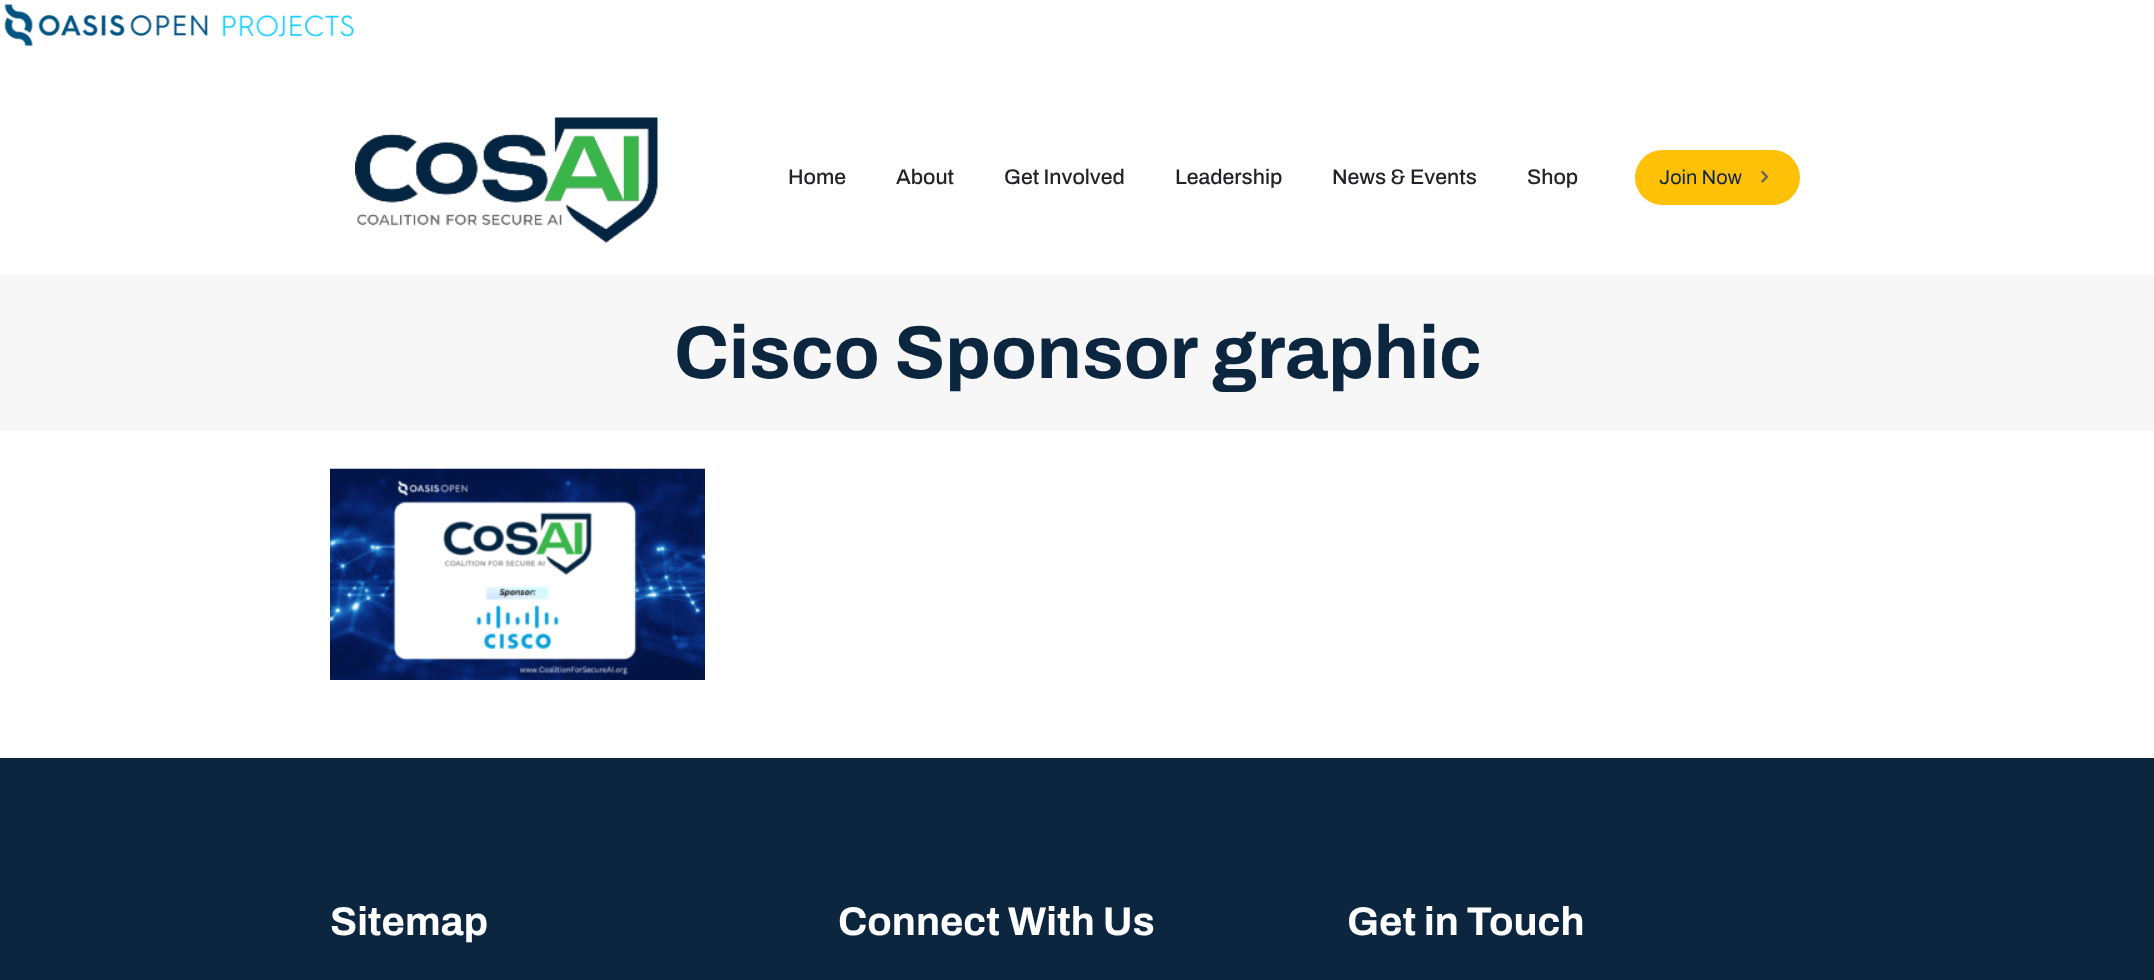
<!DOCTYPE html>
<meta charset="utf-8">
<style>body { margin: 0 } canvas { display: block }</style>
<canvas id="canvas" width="2154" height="980"></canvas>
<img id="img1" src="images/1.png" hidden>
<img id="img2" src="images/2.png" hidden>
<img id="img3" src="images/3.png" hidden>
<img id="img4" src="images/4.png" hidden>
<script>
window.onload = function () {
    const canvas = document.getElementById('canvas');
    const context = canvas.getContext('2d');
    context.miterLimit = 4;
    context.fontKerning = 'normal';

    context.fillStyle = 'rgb(255, 255, 255)';
    context.fillRect(0, 0, 2154, 980);
    context.drawImage(document.getElementById('img1'), 4, 4, 350, 42);
    context.drawImage(document.getElementById('img2'), 355, 117, 303, 126);
    context.fillStyle = 'rgb(255, 193, 7)';
    context.beginPath();
    context.roundRect(1635, 150, 165, 55, 27.5);
    context.fill();
    context.drawImage(document.getElementById('img3'), 1761, 170, 7, 13);
    context.fillStyle = 'rgb(247, 247, 247)';
    context.fillRect(0, 275, 2154, 156);
    context.drawImage(document.getElementById('img4'), 330, 468, 375, 212);
    context.fillStyle = 'rgb(13, 38, 64)';
    context.fillRect(0, 758, 2154, 222);
    context.font = '500 21.25px Archivo';
    context.fillStyle = 'rgb(34, 34, 40)';
    context.fillText('Home', 788, 184);
    context.fillText('About', 896, 184);
    context.fillText('Get Involved', 1004, 184);
    context.fillText('Leadership', 1175, 184);
    context.fillText('News & Events', 1332, 184);
    context.fillText('Shop', 1527, 184);
    context.font = '20px Archivo';
    context.fillStyle = 'rgb(13, 38, 64)';
    context.fillText('Join Now', 1659, 184);
    context.font = 'bold 75px Archivo';
    context.fillText('Cisco Sponsor graphic', 674, 378);
    context.font = 'bold 40px Archivo';
    context.fillStyle = 'rgb(255, 255, 255)';
    context.fillText('Sitemap', 330, 935);
    context.fillText('Connect With Us', 838, 935);
    context.fillText('Get in Touch', 1347, 935);
};
</script>
